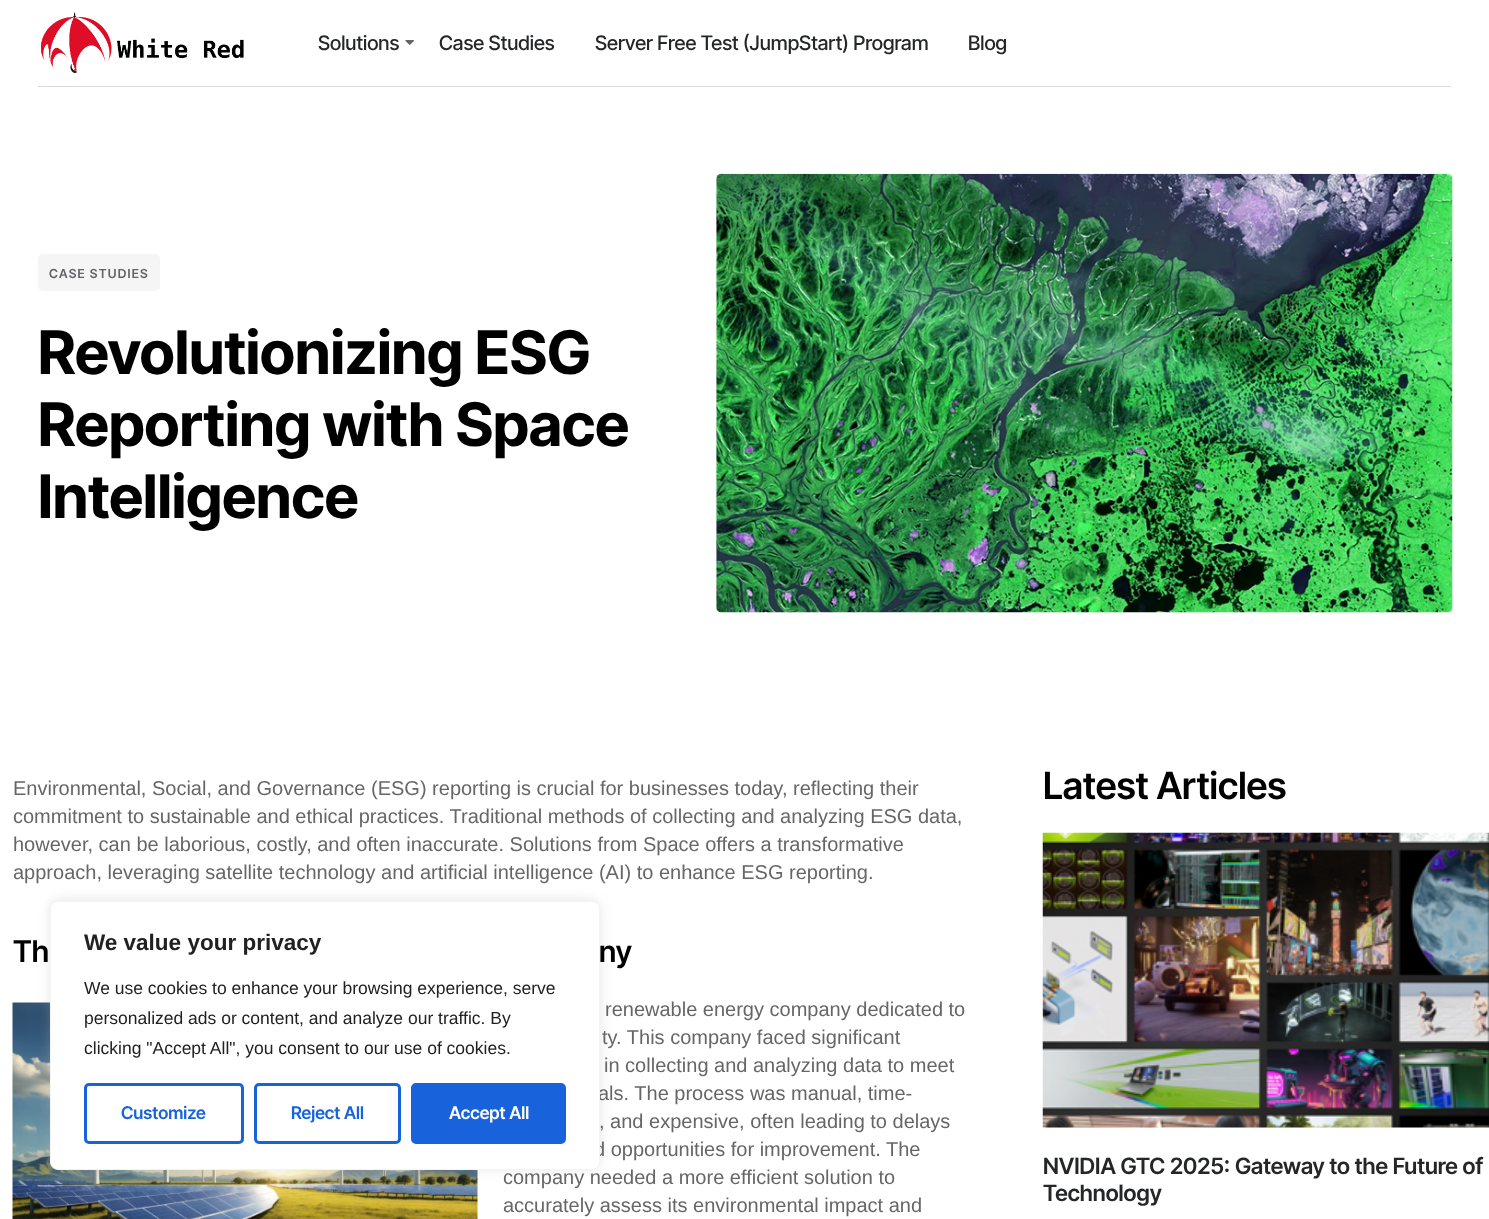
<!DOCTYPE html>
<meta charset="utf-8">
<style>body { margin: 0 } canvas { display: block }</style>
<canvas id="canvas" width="1489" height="1219"></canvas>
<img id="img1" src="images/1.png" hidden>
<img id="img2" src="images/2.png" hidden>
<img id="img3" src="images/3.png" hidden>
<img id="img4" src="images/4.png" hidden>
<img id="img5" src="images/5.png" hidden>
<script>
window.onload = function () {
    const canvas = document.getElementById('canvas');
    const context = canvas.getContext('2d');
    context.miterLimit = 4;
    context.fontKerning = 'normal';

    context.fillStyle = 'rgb(255, 255, 255)';
    context.fillRect(0, 0, 1489, 1219);
    context.fillStyle = 'rgb(217, 217, 217)';
    context.fillRect(38, 86, 1413, 1);
    context.drawImage(document.getElementById('img1'), 41, 12, 203, 62);
    context.drawImage(document.getElementById('img2'), 405, 40, 9, 5);
    context.fillStyle = 'rgb(245, 245, 245)';
    context.beginPath();
    context.roundRect(38, 254, 122, 37, 5);
    context.fill();
    context.drawImage(document.getElementById('img3'), 716, 173, 737, 440);
    context.drawImage(document.getElementById('img4'), 12, 1002, 466, 217);
    context.drawImage(document.getElementById('img5'), 1042, 832, 447, 296);
    context.fillStyle = 'rgba(172, 171, 171, 0.3)';
    context.filter = 'blur(6px)';
    context.beginPath();
    context.roundRect(50, 900, 550, 269, 8);
    context.fill();
    context.filter = 'none';
    context.font = '500 20px Inter Tight';
    context.fillStyle = 'rgb(36, 38, 39)';
    context.fillText('Solutions', 318, 50);
    context.fillText('Case Studies', 439, 50);
    context.fillText('Server Free Test (JumpStart) Program', 595, 50);
    context.fillText('Blog', 968, 50);
    context.letterSpacing = '1.25px';
    context.font = '600 12.5px Inter Tight';
    context.fillStyle = 'rgb(95, 101, 103)';
    context.fillText('CASE STUDIES', 49, 278);
    context.letterSpacing = '0px';
    context.font = 'bold 60px Inter Tight';
    context.fillStyle = 'rgb(0, 0, 0)';
    context.fillText('Revolutionizing ESG', 38, 374);
    context.fillText('Reporting with Space', 38, 446);
    context.fillText('Intelligence', 38, 518);
    context.font = '20px Liberation Sans';
    context.fillStyle = 'rgb(102, 102, 102)';
    context.fillText('Environmental, Social, and Governance (ESG) reporting is crucial for businesses today, reflecting their', 13, 795);
    context.fillText('commitment to sustainable and ethical practices. Traditional methods of collecting and analyzing ESG data,', 13, 823);
    context.fillText('however, can be laborious, costly, and often inaccurate. Solutions from Space offers a transformative', 13, 851);
    context.fillText('approach, leveraging satellite technology and artificial intelligence (AI) to enhance ESG reporting.', 13, 879);
    context.font = '600 30px Inter Tight';
    context.fillStyle = 'rgb(0, 0, 0)';
    context.fillText('Th', 13, 962);
    context.fillText('ny', 599, 962);
    context.font = '20px Liberation Sans';
    context.fillStyle = 'rgb(102, 102, 102)';
    context.fillText('renewable energy company dedicated to', 605, 1016);
    context.fillText('ty. This company faced significant', 602, 1044);
    context.fillText('in collecting and analyzing data to meet', 604, 1072);
    context.fillText('als. The process was manual, time-', 598, 1100);
    context.fillText(', and expensive, often leading to delays', 599, 1128);
    context.fillText('d opportunities for improvement. The', 594, 1156);
    context.fillText('company needed a more efficient solution to', 503, 1184);
    context.fillText('accurately assess its environmental impact and', 503, 1212);
    context.font = '600 37.5px Inter Tight';
    context.fillStyle = 'rgb(0, 0, 0)';
    context.fillText('Latest Articles', 1043, 799);
    context.font = '600 22.5px Inter Tight';
    context.fillStyle = 'rgb(36, 38, 39)';
    context.fillText('NVIDIA GTC 2025: Gateway to the Future of', 1043, 1174);
    context.fillText('Technology', 1043, 1201);
    context.fillStyle = 'rgb(255, 255, 255)';
    context.beginPath();
    context.roundRect(50.5, 901.5, 549, 268, 7.5);
    context.fill();
    context.strokeStyle = 'rgb(244, 244, 244)';
    context.stroke();
    context.font = 'bold 22.5px Liberation Sans';
    context.fillStyle = 'rgb(33, 33, 33)';
    context.fillText('We value your privacy', 84, 950);
    context.font = '17.5px Liberation Sans';
    context.fillText('We use cookies to enhance your browsing experience, serve', 84, 994);
    context.fillText('personalized ads or content, and analyze our traffic. By', 84, 1024);
    context.fillText('clicking "Accept All", you consent to our use of cookies.', 84, 1054);
    context.beginPath();
    context.roundRect(85.5, 1084.5, 157, 58, 3.5);
    context.strokeStyle = 'rgb(24, 99, 220)';
    context.lineWidth = 3;
    context.stroke();
    context.font = '600 17.5px Inter Tight';
    context.fillStyle = 'rgb(24, 99, 220)';
    context.fillText('Customize', 121, 1119);
    context.beginPath();
    context.roundRect(255.5, 1084.5, 144, 58, 3.5);
    context.stroke();
    context.fillText('Reject All', 291, 1119);
    context.beginPath();
    context.roundRect(412.5, 1084.5, 152, 58, 3.5);
    context.fill();
    context.stroke();
    context.fillStyle = 'rgb(255, 255, 255)';
    context.fillText('Accept All', 449, 1119);
};
</script>
